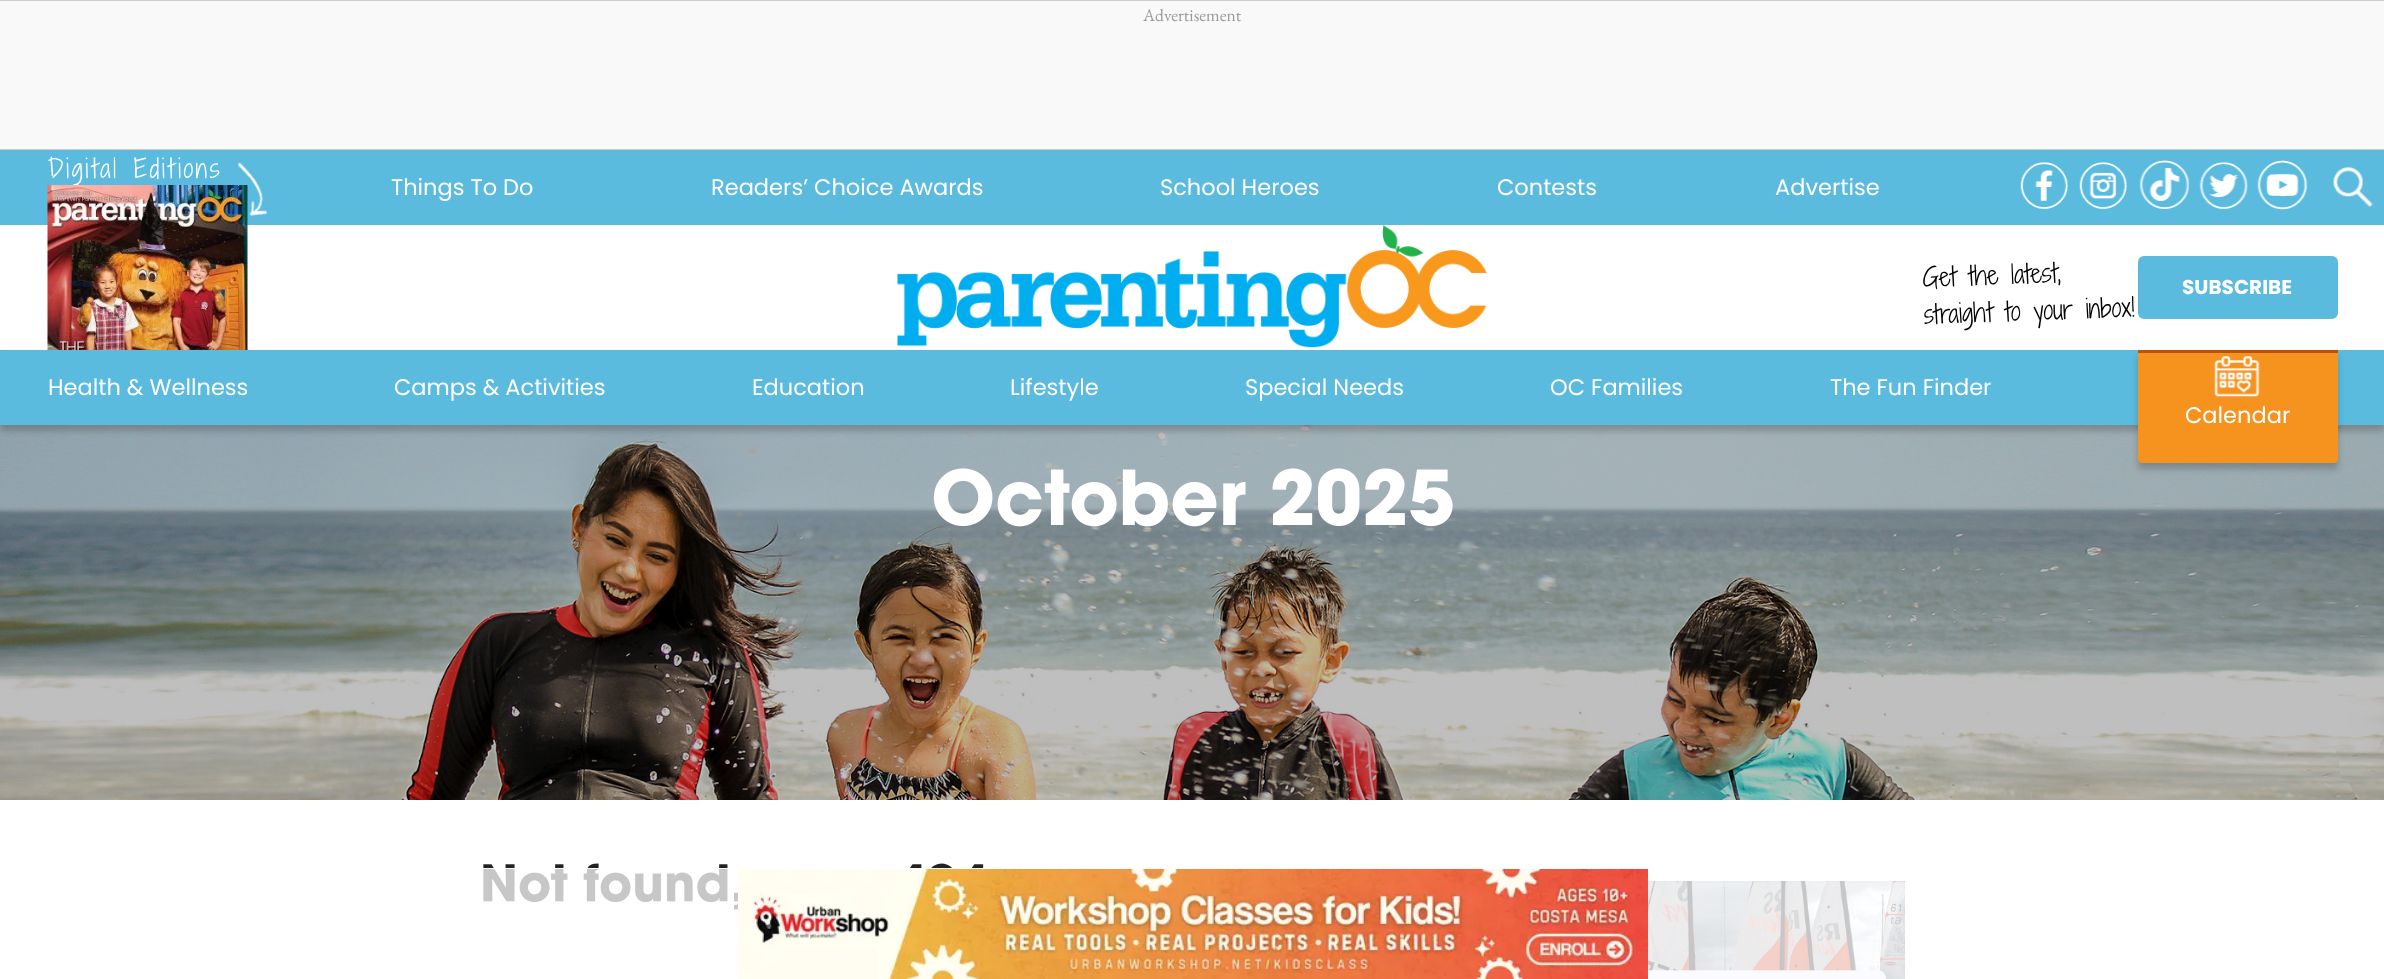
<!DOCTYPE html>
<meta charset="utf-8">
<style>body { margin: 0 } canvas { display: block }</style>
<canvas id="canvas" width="2384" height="979"></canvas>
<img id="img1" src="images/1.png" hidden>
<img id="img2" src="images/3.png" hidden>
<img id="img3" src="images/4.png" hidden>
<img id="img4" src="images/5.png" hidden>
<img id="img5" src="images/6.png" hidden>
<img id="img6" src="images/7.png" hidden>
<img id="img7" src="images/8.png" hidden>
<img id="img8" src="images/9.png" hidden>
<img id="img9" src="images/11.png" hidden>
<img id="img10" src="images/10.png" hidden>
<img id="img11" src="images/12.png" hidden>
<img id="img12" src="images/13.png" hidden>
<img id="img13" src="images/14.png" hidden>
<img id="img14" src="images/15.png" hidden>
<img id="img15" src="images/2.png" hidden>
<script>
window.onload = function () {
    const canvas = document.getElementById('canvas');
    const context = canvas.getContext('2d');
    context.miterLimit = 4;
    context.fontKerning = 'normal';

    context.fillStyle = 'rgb(255, 255, 255)';
    context.fillRect(0, 0, 2384, 979);
    context.fillStyle = 'rgb(249, 249, 249)';
    context.fillRect(0, 1, 2384, 148);
    context.fillStyle = 'rgb(204, 204, 204)';
    context.fillRect(0, 0, 2384, 1);
    context.fillRect(0, 149, 2384, 1);
    context.fillStyle = 'rgb(90, 187, 223)';
    context.fillRect(0, 150, 2384, 75);
    context.drawImage(document.getElementById('img1'), 237, 162, 31, 54);
    context.drawImage(document.getElementById('img2'), 897, 225, 590, 123);
    context.beginPath();
    context.roundRect(2139.5, 257.5, 197, 60, 4.5);
    context.fill();
    context.strokeStyle = 'rgb(90, 187, 223)';
    context.lineWidth = 3;
    context.stroke();
    context.drawImage(document.getElementById('img3'), 2333, 167, 40, 41);
    context.drawImage(document.getElementById('img4'), 2020, 162, 48, 47);
    context.drawImage(document.getElementById('img5'), 2079, 162, 48, 47);
    context.drawImage(document.getElementById('img6'), 2139, 160, 50, 49);
    context.drawImage(document.getElementById('img7'), 2199, 162, 49, 47);
    context.drawImage(document.getElementById('img8'), 2257, 160, 51, 50);
    context.drawImage(document.getElementById('img9'), 0, 425, 2384, 375);
    context.fillStyle = 'rgba(0, 0, 0, 0.2)';
    context.filter = 'blur(3px)';
    context.beginPath();
    context.rect(0, 356, 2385, 75);
    context.fill();
    context.filter = 'none';
    context.fillStyle = 'rgb(90, 187, 223)';
    context.fillRect(0, 350, 2384, 75);
    context.fillStyle = 'rgba(0, 0, 0, 0.2)';
    context.filter = 'blur(3px)';
    context.beginPath();
    context.roundRect(2138, 356, 200, 113, 4);
    context.fill();
    context.filter = 'none';
    context.fillStyle = 'rgb(246, 147, 30)';
    context.beginPath();
    context.roundRect(2138, 350, 200, 113, [0, 0, 4, 4]);
    context.fill();
    context.drawImage(document.getElementById('img10'), 2214, 356, 46, 41);
    context.fillStyle = 'rgb(186, 83, 0)';
    context.fillRect(2138, 350, 200, 3);
    context.drawImage(document.getElementById('img11'), 933, 468, 520, 59);
    context.drawImage(document.getElementById('img12'), 483, 863, 501, 47);
    context.drawImage(document.getElementById('img13'), 1648, 881, 257, 98);
    context.fillStyle = 'rgba(255, 255, 255, 0.75)';
    context.fillRect(483, 869, 1422, 110);
    context.fillStyle = 'rgb(255, 255, 255)';
    context.fillRect(483, 868, 501, 1);
    context.drawImage(document.getElementById('img14'), 738, 869, 910, 110);
    context.font = '17.5px EB Garamond';
    context.fillStyle = 'rgb(153, 153, 153)';
    context.fillText('Advertisement', 1143, 21);
    context.letterSpacing = '2.5px';
    context.font = '300 25px Shadows Into Light Two';
    context.fillStyle = 'rgb(255, 255, 255)';
    context.fillText('Digital Editions', 48, 178);
    context.drawImage(document.getElementById('img15'), 47, 185, 201, 165);
    context.letterSpacing = '0px';
    context.fillStyle = 'rgb(0, 0, 0)';
    context.save();
    context.translate(1923, 287);
    context.rotate(-2 * Math.PI / 180);
    context.fillText('Get the latest,', 0, 0);
    context.restore();
    context.save();
    context.translate(1924, 324);
    context.rotate(-2 * Math.PI / 180);
    context.fillText('straight to your inbox!', 0, 0);
    context.restore();
    context.font = 'bold 20px Poppins';
    context.fillStyle = 'rgb(255, 255, 255)';
    context.fillText('SUBSCRIBE', 2182, 294);
    context.font = '22.5px Poppins';
    context.fillText('Things To Do', 391, 195);
    context.fillText('Readers’ Choice Awards', 711, 195);
    context.fillText('School Heroes', 1160, 195);
    context.fillText('Contests', 1497, 195);
    context.fillText('Advertise', 1775, 195);
    context.fillText('Health & Wellness', 48, 395);
    context.fillText('Camps & Activities', 394, 395);
    context.fillText('Education', 752, 395);
    context.fillText('Lifestyle', 1010, 395);
    context.fillText('Special Needs', 1245, 395);
    context.fillText('OC Families', 1550, 395);
    context.fillText('The Fun Finder', 1830, 395);
    context.fillText('Calendar', 2185, 423);
};
</script>
